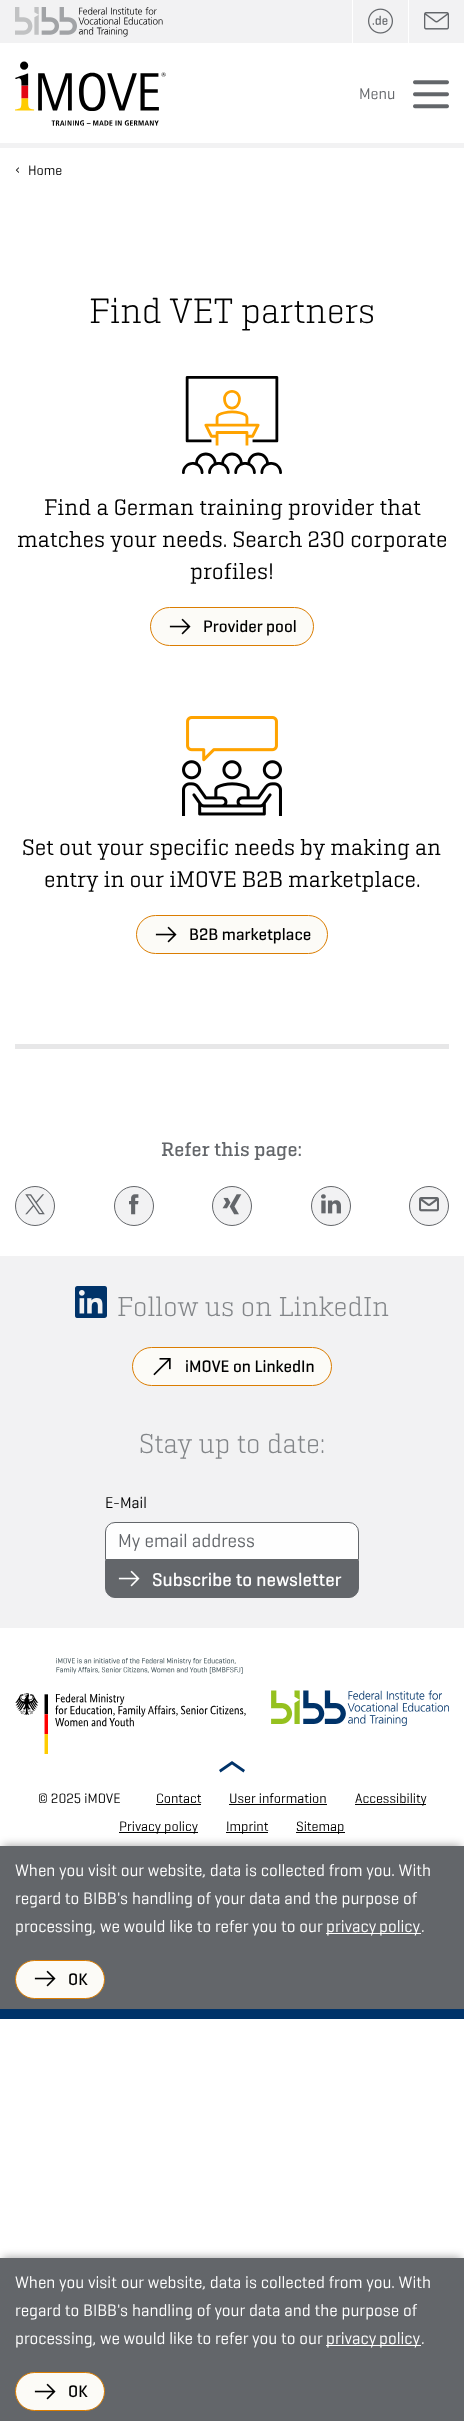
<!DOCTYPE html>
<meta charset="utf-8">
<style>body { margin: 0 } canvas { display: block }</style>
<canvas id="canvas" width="464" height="2421"></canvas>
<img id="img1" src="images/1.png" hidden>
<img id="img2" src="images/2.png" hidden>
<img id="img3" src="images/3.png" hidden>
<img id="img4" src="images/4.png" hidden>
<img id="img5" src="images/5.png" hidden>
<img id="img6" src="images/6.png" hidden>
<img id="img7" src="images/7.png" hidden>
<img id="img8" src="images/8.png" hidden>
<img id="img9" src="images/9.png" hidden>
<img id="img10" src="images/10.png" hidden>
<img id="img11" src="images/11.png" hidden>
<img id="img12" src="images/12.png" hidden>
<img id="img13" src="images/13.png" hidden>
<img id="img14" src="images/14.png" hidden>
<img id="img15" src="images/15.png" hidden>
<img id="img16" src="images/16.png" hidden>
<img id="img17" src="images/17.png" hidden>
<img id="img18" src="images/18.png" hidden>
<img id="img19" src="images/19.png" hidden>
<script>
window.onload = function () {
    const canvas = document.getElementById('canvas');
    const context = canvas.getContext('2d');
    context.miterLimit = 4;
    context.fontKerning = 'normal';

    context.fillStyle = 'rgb(255, 255, 255)';
    context.fillRect(0, 0, 464, 2421);
    context.fillStyle = 'rgb(242, 242, 243)';
    context.fillRect(0, 143, 464, 5);
    context.fillRect(0, 0, 464, 43);
    context.drawImage(document.getElementById('img1'), 15, 7, 148, 30);
    context.fillStyle = 'rgb(255, 255, 255)';
    context.fillRect(352, 0, 1, 43);
    context.drawImage(document.getElementById('img2'), 368, 8, 25, 26);
    context.fillRect(408, 0, 1, 43);
    context.drawImage(document.getElementById('img3'), 424, 12, 25, 18);
    context.drawImage(document.getElementById('img4'), 15, 61, 151, 65);
    context.drawImage(document.getElementById('img5'), 413, 80, 36, 29);
    context.drawImage(document.getElementById('img6'), 15, 167, 4, 6);
    context.drawImage(document.getElementById('img7'), 182, 376, 100, 98);
    context.fillStyle = 'rgb(252, 251, 247)';
    context.beginPath();
    context.roundRect(150.5, 607.5, 163, 38, 19);
    context.fill();
    context.strokeStyle = 'rgb(219, 125, 1)';
    context.stroke();
    context.drawImage(document.getElementById('img8'), 169, 618, 22, 17);
    context.drawImage(document.getElementById('img9'), 182, 716, 100, 100);
    context.beginPath();
    context.roundRect(136.5, 915.5, 191, 38, 19);
    context.fill();
    context.stroke();
    context.drawImage(document.getElementById('img8'), 155, 926, 22, 17);
    context.fillStyle = 'rgb(231, 231, 232)';
    context.fillRect(15, 1044, 434, 5);
    context.fillStyle = 'rgba(0, 0, 0, 0.32)';
    context.filter = 'blur(4.5px)';
    context.beginPath();
    context.rect(3, 1845, 458, 157);
    context.fill();
    context.filter = 'none';
    context.fillStyle = 'rgb(0, 51, 105)';
    context.fillRect(0, 2009, 464, 10);
    context.fillStyle = 'rgb(242, 242, 243)';
    context.beginPath();
    context.arc(35, 1206, 19.5, 0, 2 * Math.PI);
    context.fill();
    context.strokeStyle = 'rgb(99, 102, 106)';
    context.stroke();
    context.drawImage(document.getElementById('img10'), 25, 1194, 20, 21);
    context.beginPath();
    context.arc(134, 1206, 19.5, 0, 2 * Math.PI);
    context.fill();
    context.stroke();
    context.drawImage(document.getElementById('img11'), 129, 1194, 10, 21);
    context.beginPath();
    context.arc(232, 1206, 19.5, 0, 2 * Math.PI);
    context.fill();
    context.stroke();
    context.drawImage(document.getElementById('img12'), 222, 1194, 20, 21);
    context.beginPath();
    context.arc(331, 1206, 19.5, 0, 2 * Math.PI);
    context.fill();
    context.stroke();
    context.drawImage(document.getElementById('img13'), 321, 1194, 20, 20);
    context.beginPath();
    context.arc(429, 1206, 19.5, 0, 2 * Math.PI);
    context.fill();
    context.stroke();
    context.drawImage(document.getElementById('img14'), 419, 1197, 20, 15);
    context.fillRect(0, 1256, 464, 372);
    context.drawImage(document.getElementById('img15'), 75, 1286, 32, 32);
    context.fillStyle = 'rgb(252, 251, 247)';
    context.beginPath();
    context.roundRect(132.5, 1347.5, 199, 38, 19);
    context.fill();
    context.strokeStyle = 'rgb(219, 125, 1)';
    context.stroke();
    context.drawImage(document.getElementById('img16'), 153, 1358, 18, 18);
    context.fillStyle = 'rgb(254, 254, 254)';
    context.beginPath();
    context.roundRect(105.5, 1522.5, 253, 37, [9.5, 9.5, 0, 0]);
    context.fill();
    context.strokeStyle = 'rgb(99, 102, 106)';
    context.stroke();
    context.fillStyle = 'rgb(99, 102, 106)';
    context.beginPath();
    context.roundRect(105.5, 1560.5, 253, 37, [0, 0, 9.5, 9.5]);
    context.fill();
    context.stroke();
    context.drawImage(document.getElementById('img17'), 118, 1570, 22, 17);
    context.drawImage(document.getElementById('img18'), 15, 1658, 231, 96);
    context.drawImage(document.getElementById('img19'), 271, 1690, 178, 36);
    context.fillStyle = 'rgb(0, 51, 105)';
    context.beginPath();
    context.moveTo(219, 1770);
    context.lineTo(220.5, 1772.5);
    context.lineTo(232, 1764.5);
    context.lineTo(243.5, 1772.5);
    context.lineTo(245, 1770);
    context.lineTo(232, 1761);
    context.closePath();
    context.fill();
    context.fillStyle = 'rgb(0, 0, 0)';
    context.fillRect(156, 1804, 45, 1);
    context.fillRect(229, 1804, 98, 1);
    context.fillRect(355, 1804, 71, 1);
    context.fillRect(119, 1832, 79, 1);
    context.fillRect(226, 1832, 42, 1);
    context.fillRect(296, 1832, 49, 1);
    context.fillStyle = 'rgb(99, 102, 106)';
    context.fillRect(0, 1846, 464, 163);
    context.fillStyle = 'rgb(255, 255, 255)';
    context.fillRect(326, 1933, 95, 1);
    context.fillStyle = 'rgb(252, 251, 247)';
    context.beginPath();
    context.roundRect(15.5, 1960.5, 89, 38, 19);
    context.fill();
    context.strokeStyle = 'rgb(219, 125, 1)';
    context.stroke();
    context.drawImage(document.getElementById('img8'), 34, 1970, 22, 17);
    context.fillStyle = 'rgba(0, 0, 0, 0.32)';
    context.filter = 'blur(4.5px)';
    context.beginPath();
    context.rect(3, 2257, 458, 157);
    context.fill();
    context.filter = 'none';
    context.fillStyle = 'rgb(99, 102, 106)';
    context.fillRect(0, 2258, 464, 163);
    context.fillStyle = 'rgb(255, 255, 255)';
    context.fillRect(326, 2345, 95, 1);
    context.fillStyle = 'rgb(252, 251, 247)';
    context.beginPath();
    context.roundRect(15.5, 2372.5, 89, 38, 19);
    context.fill();
    context.stroke();
    context.drawImage(document.getElementById('img8'), 34, 2383, 22, 17);
    context.font = '16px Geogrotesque';
    context.fillStyle = 'rgb(99, 102, 106)';
    context.fillText('Menu', 359, 99);
    context.font = '14px Geogrotesque';
    context.fillStyle = 'rgb(0, 0, 0)';
    context.fillText('Home', 28, 175);
    context.font = '36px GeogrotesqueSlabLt';
    context.fillText('Find VET partners', 89, 323);
    context.font = '23px "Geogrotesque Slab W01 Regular"';
    context.fillText('Find a German training provider that', 44, 515);
    context.fillText('matches your needs. Search 230 corporate', 17, 547);
    context.fillText('profiles!', 190, 579);
    context.font = '500 17px "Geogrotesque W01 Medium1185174"';
    context.fillText('Provider pool', 203, 632);
    context.font = '23px "Geogrotesque Slab W01 Regular"';
    context.fillText('Set out your specific needs by making an', 22, 855);
    context.fillText('entry in our iMOVE B2B marketplace.', 44, 887);
    context.font = '500 17px "Geogrotesque W01 Medium1185174"';
    context.fillText('B2B marketplace', 189, 940);
    context.font = '20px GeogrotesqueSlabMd';
    context.fillStyle = 'rgb(99, 102, 106)';
    context.fillText('Refer this page:', 161, 1156);
    context.font = '28px GeogrotesqueSlabLt';
    context.fillStyle = 'rgb(130, 133, 136)';
    context.fillText('Follow us on LinkedIn', 117, 1316);
    context.font = '500 17px "Geogrotesque W01 Medium1185174"';
    context.fillStyle = 'rgb(0, 0, 0)';
    context.fillText('iMOVE on LinkedIn', 185, 1372);
    context.font = '28px GeogrotesqueSlabLt';
    context.fillStyle = 'rgb(130, 133, 136)';
    context.fillText('Stay up to date:', 139, 1453);
    context.font = '16px Geogrotesque';
    context.fillStyle = 'rgb(0, 0, 0)';
    context.fillText('E-Mail', 105, 1508);
    context.font = '19px Geogrotesque';
    context.fillStyle = 'rgb(99, 102, 106)';
    context.fillText('My email address', 118, 1547);
    context.font = '500 19px "Geogrotesque W01 Medium1185174"';
    context.fillStyle = 'rgb(255, 255, 255)';
    context.fillText('Subscribe to newsletter', 152, 1586);
    context.font = '14px Geogrotesque';
    context.fillStyle = 'rgb(0, 0, 0)';
    context.fillText('© 2025 iMOVE', 38, 1803);
    context.fillText('Contact', 156, 1803);
    context.fillText('User information', 229, 1803);
    context.fillText('Accessibility', 355, 1803);
    context.fillText('Privacy policy', 119, 1831);
    context.fillText('Imprint', 226, 1831);
    context.fillText('Sitemap', 296, 1831);
    context.font = '17px Geogrotesque';
    context.fillStyle = 'rgb(255, 255, 255)';
    context.fillText('When you visit our website, data is collected from you. With', 15, 1876);
    context.fillText('regard to BIBB\'s handling of your data and the purpose of', 15, 1904);
    context.fillText('processing, we would like to refer you to our', 15, 1932);
    context.wordSpacing = '-1px';
    context.fillText('privacy policy', 326, 1932);
    context.wordSpacing = '0px';
    context.fillText('.', 421, 1932);
    context.font = '500 17px "Geogrotesque W01 Medium1185174"';
    context.fillStyle = 'rgb(0, 0, 0)';
    context.fillText('OK', 68, 1985);
    context.font = '17px Geogrotesque';
    context.fillStyle = 'rgb(255, 255, 255)';
    context.fillText('When you visit our website, data is collected from you. With', 15, 2288);
    context.fillText('regard to BIBB\'s handling of your data and the purpose of', 15, 2316);
    context.fillText('processing, we would like to refer you to our', 15, 2344);
    context.wordSpacing = '-1px';
    context.fillText('privacy policy', 326, 2344);
    context.wordSpacing = '0px';
    context.fillText('.', 421, 2344);
    context.font = '500 17px "Geogrotesque W01 Medium1185174"';
    context.fillStyle = 'rgb(0, 0, 0)';
    context.fillText('OK', 68, 2397);
};
</script>
